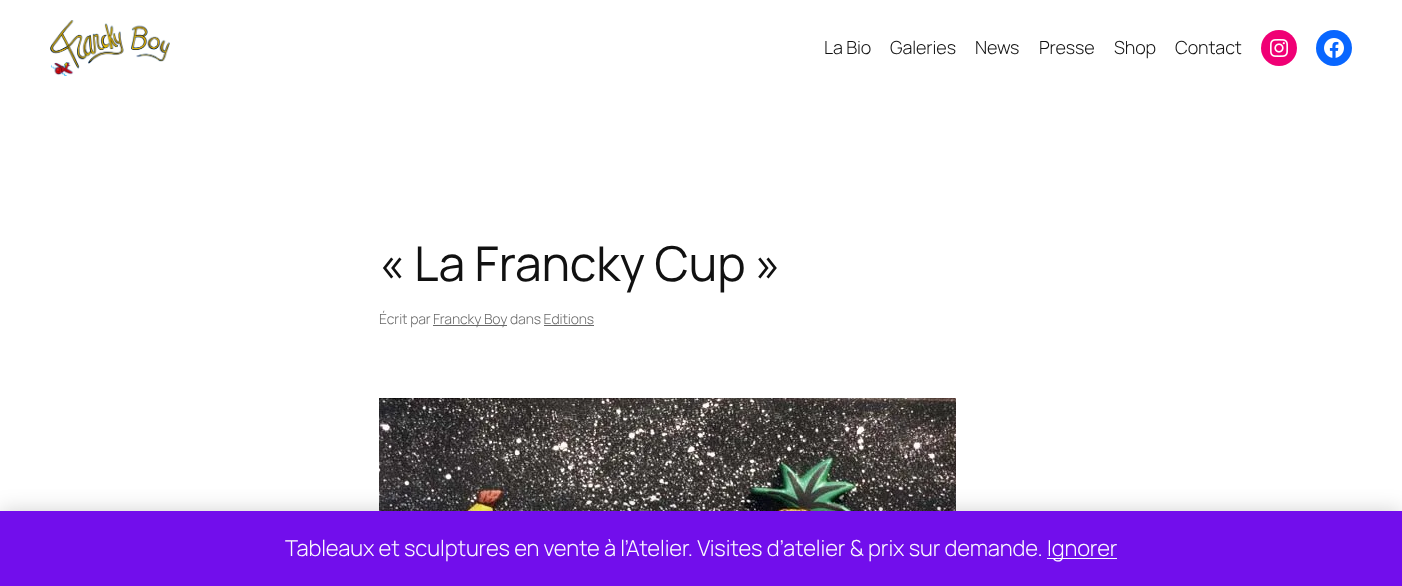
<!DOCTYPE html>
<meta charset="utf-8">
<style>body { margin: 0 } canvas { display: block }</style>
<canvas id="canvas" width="1402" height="586"></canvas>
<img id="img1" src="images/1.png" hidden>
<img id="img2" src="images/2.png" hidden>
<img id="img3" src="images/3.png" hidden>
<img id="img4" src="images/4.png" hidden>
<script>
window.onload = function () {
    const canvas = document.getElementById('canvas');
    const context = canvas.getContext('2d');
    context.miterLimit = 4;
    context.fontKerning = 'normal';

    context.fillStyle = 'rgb(255, 255, 255)';
    context.fillRect(0, 0, 1402, 586);
    context.drawImage(document.getElementById('img1'), 50, 20, 120, 56);
    context.fillStyle = 'rgb(240, 0, 117)';
    context.beginPath();
    context.arc(1279, 48, 18, 0, 2 * Math.PI);
    context.fill();
    context.drawImage(document.getElementById('img2'), 1270, 39, 18, 18);
    context.fillStyle = 'rgb(8, 102, 255)';
    context.beginPath();
    context.arc(1334, 48, 18, 0, 2 * Math.PI);
    context.fill();
    context.drawImage(document.getElementById('img3'), 1324, 38, 20, 20);
    context.fillStyle = 'rgb(104, 104, 104)';
    context.fillRect(433, 325, 74, 1);
    context.fillRect(544, 325, 50, 1);
    context.drawImage(document.getElementById('img4'), 379, 398, 577, 113);
    context.fillStyle = 'rgba(0, 0, 0, 0.2)';
    context.filter = 'blur(11px)';
    context.beginPath();
    context.rect(0, 512, 1402, 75);
    context.fill();
    context.filter = 'none';
    context.fillStyle = 'rgb(114, 14, 236)';
    context.fillRect(0, 511, 1402, 75);
    context.fillStyle = 'rgb(252, 251, 254)';
    context.fillRect(1047, 558, 70, 1);
    context.letterSpacing = '-0.1px';
    context.font = '300 18px Manrope';
    context.fillStyle = 'rgb(17, 17, 17)';
    context.fillText('La Bio', 824, 54);
    context.fillText('Galeries', 890, 54);
    context.fillText('News', 975, 54);
    context.fillText('Presse', 1039, 54);
    context.fillText('Shop', 1114, 54);
    context.fillText('Contact', 1175, 54);
    context.font = '48px Manrope';
    context.fillText('« La Francky Cup »', 379, 281);
    context.font = '300 14px Manrope';
    context.fillStyle = 'rgb(104, 104, 104)';
    context.fillText('Écrit par', 379, 324);
    context.fillText('Francky Boy dans Editions', 433, 324);
    context.font = '300 22px Manrope';
    context.fillStyle = 'rgb(252, 251, 254)';
    context.fillText('Tableaux et sculptures en vente à l’Atelier. Visites d’atelier & prix sur demande.', 285, 556);
    context.fillText('Ignorer', 1047, 556);
};
</script>
